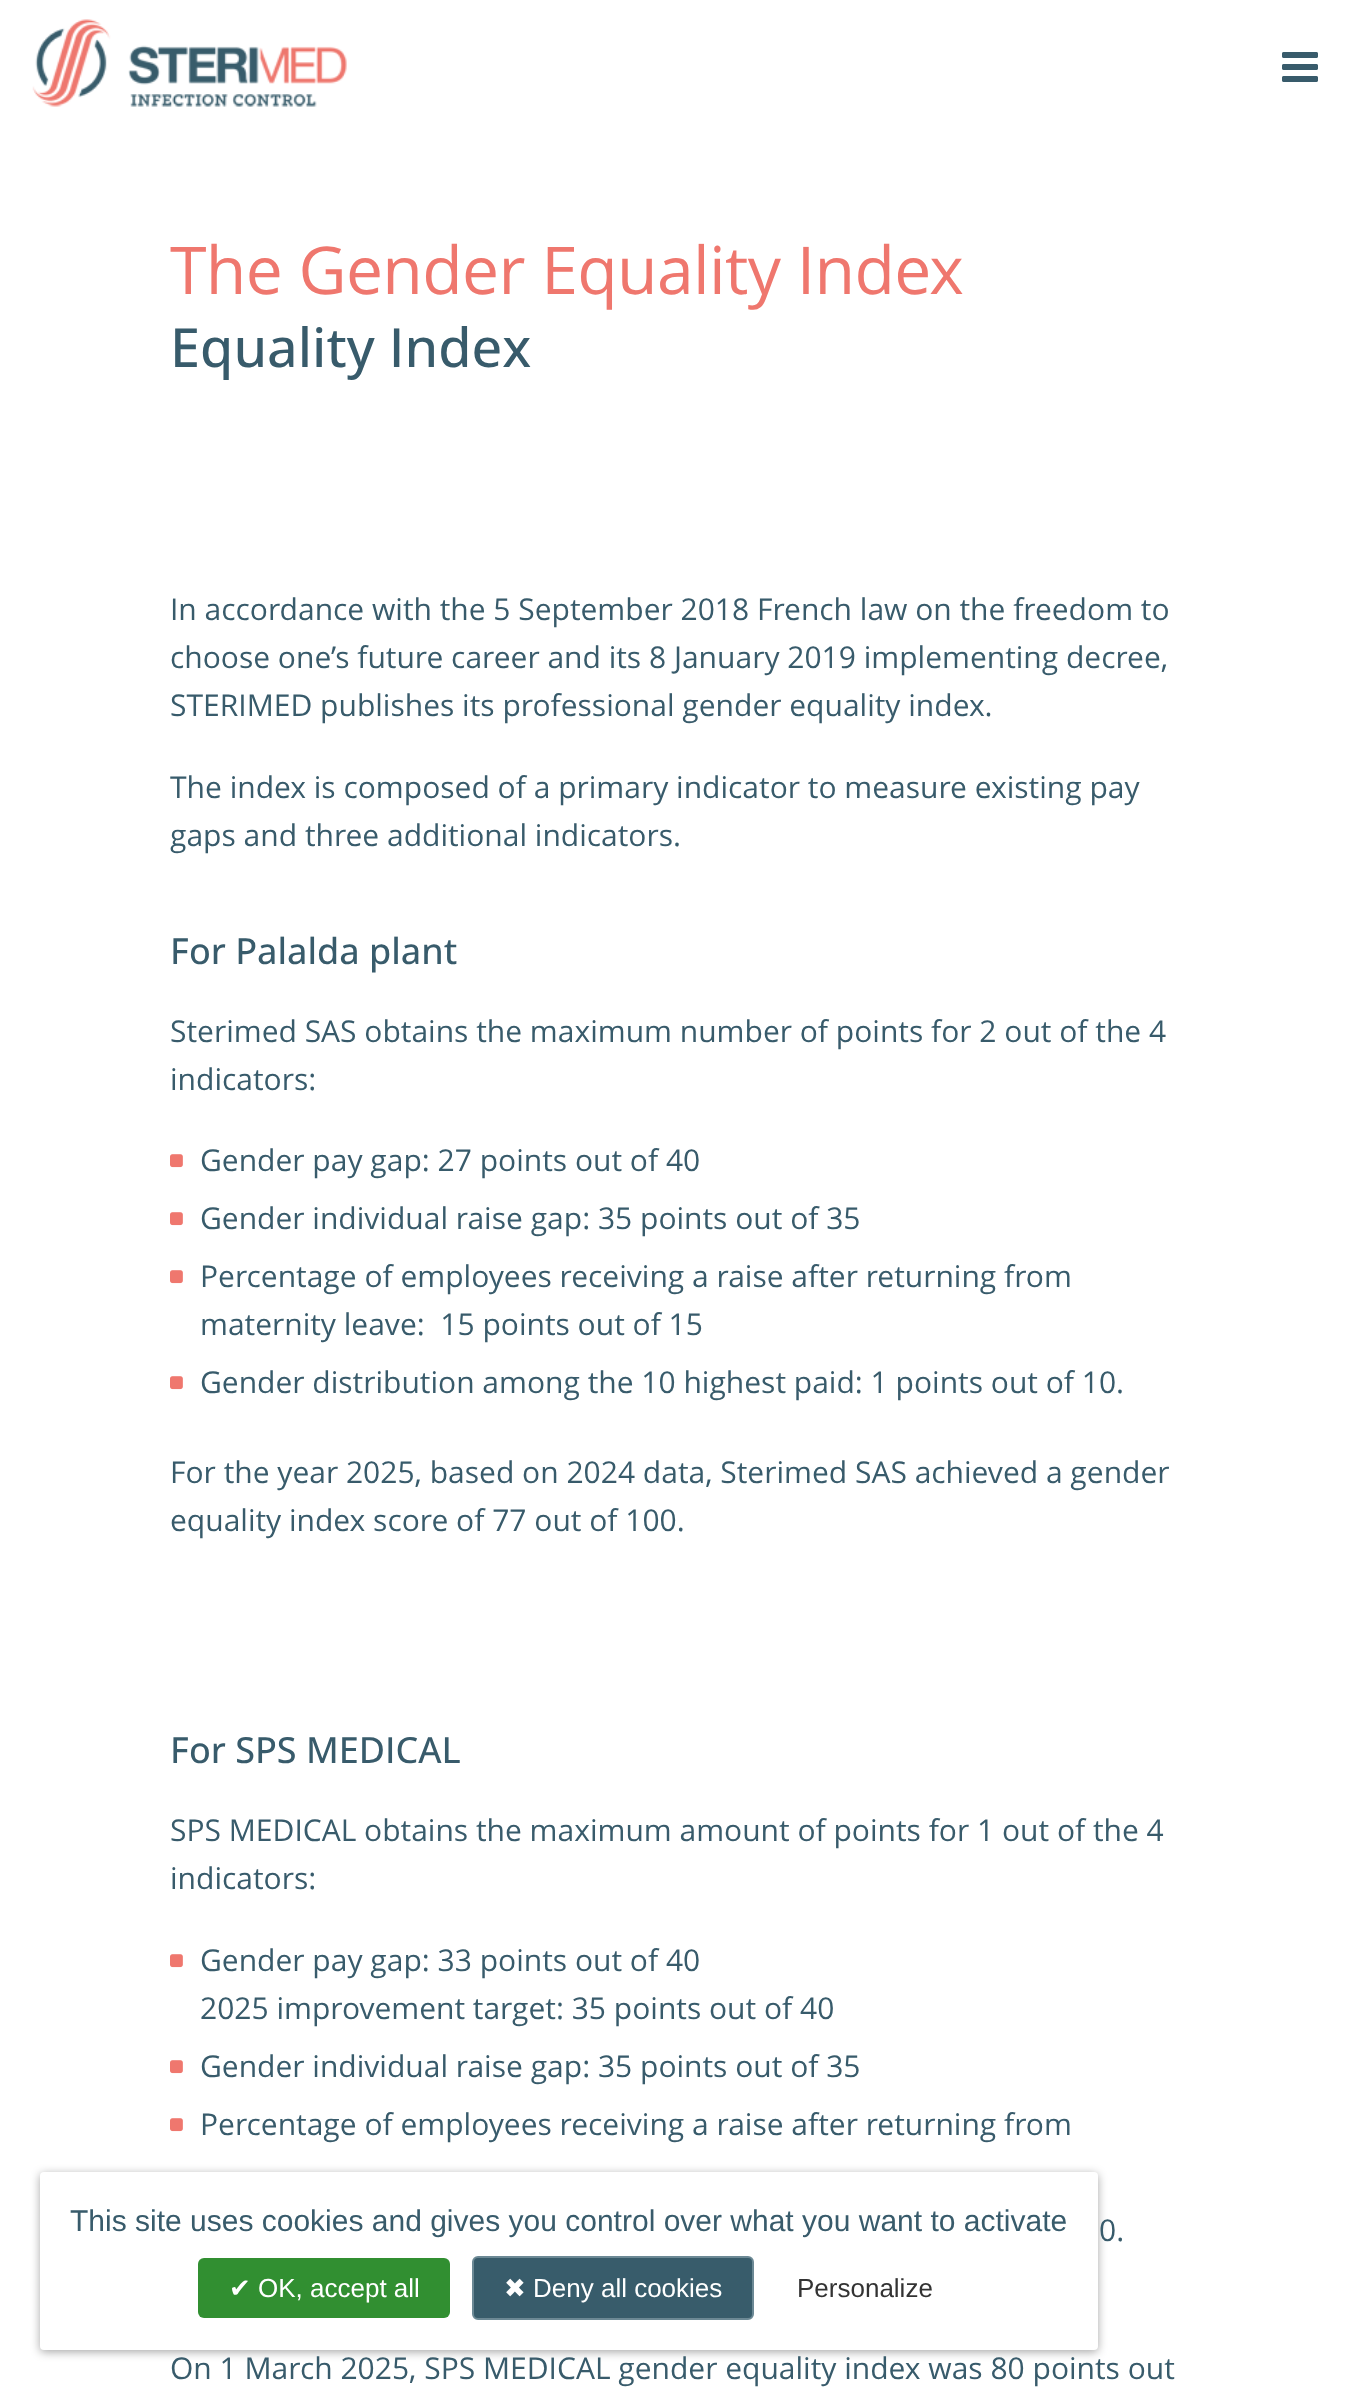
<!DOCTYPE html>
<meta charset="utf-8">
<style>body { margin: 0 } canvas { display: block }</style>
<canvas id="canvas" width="1359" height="2389"></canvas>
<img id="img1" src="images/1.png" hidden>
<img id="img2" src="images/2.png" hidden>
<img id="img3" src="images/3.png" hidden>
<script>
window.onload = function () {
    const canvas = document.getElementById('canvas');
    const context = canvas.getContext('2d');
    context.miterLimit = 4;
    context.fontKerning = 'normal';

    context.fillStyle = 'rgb(255, 255, 255)';
    context.fillRect(0, 0, 1359, 2389);
    context.drawImage(document.getElementById('img1'), 32, 19, 315, 88);
    context.drawImage(document.getElementById('img2'), 1282, 52, 36, 30);
    context.drawImage(document.getElementById('img3'), 170, 1154, 13, 14);
    context.drawImage(document.getElementById('img3'), 170, 1212, 13, 14);
    context.drawImage(document.getElementById('img3'), 170, 1270, 13, 14);
    context.drawImage(document.getElementById('img3'), 170, 1376, 13, 14);
    context.drawImage(document.getElementById('img3'), 170, 1954, 13, 14);
    context.drawImage(document.getElementById('img3'), 170, 2060, 13, 14);
    context.drawImage(document.getElementById('img3'), 170, 2118, 13, 14);
    context.fillStyle = 'rgba(0, 0, 0, 0.35)';
    context.filter = 'blur(5px)';
    context.beginPath();
    context.roundRect(40, 2174, 1058, 178, 4);
    context.fill();
    context.filter = 'none';
    context.fillStyle = 'rgb(255, 255, 255)';
    context.beginPath();
    context.roundRect(40, 2172, 1058, 178, 4);
    context.fill();
    context.fillStyle = 'rgb(49, 143, 49)';
    context.beginPath();
    context.roundRect(198, 2258, 252, 60, 6);
    context.fill();
    context.fillStyle = 'rgb(56, 92, 107)';
    context.beginPath();
    context.roundRect(473, 2257, 280, 62, 5);
    context.fill();
    context.strokeStyle = 'rgb(108, 137, 149)';
    context.lineWidth = 2;
    context.stroke();
    context.letterSpacing = '-0.65px';
    context.font = '66px Open Sans';
    context.fillStyle = 'rgb(239, 119, 110)';
    context.fillText('The Gender Equality Index', 170, 294);
    context.letterSpacing = '0px';
    context.font = '500 54px Open Sans';
    context.fillStyle = 'rgb(56, 91, 107)';
    context.fillText('Equality Index', 170, 367);
    context.font = '30px Open Sans';
    context.fillText('In accordance with the 5 September 2018 French law on the freedom to', 170, 620);
    context.fillText('choose one’s future career and its 8 January 2019 implementing decree,', 170, 668);
    context.fillText('STERIMED publishes its professional gender equality index.', 170, 716);
    context.fillText('The index is composed of a primary indicator to measure existing pay', 170, 798);
    context.fillText('gaps and three additional indicators.', 170, 846);
    context.font = '500 36px Open Sans';
    context.fillText('For Palalda plant', 170, 964);
    context.font = '30px Open Sans';
    context.fillText('Sterimed SAS obtains the maximum number of points for 2 out of the 4', 170, 1042);
    context.fillText('indicators:', 170, 1090);
    context.fillText('Gender pay gap: 27 points out of 40', 200, 1171);
    context.fillText('Gender individual raise gap: 35 points out of 35', 200, 1229);
    context.fillText('Percentage of employees receiving a raise after returning from', 200, 1287);
    context.fillText('maternity leave:  15 points out of 15', 200, 1335);
    context.fillText('Gender distribution among the 10 highest paid: 1 points out of 10.', 200, 1393);
    context.fillText('For the year 2025, based on 2024 data, Sterimed SAS achieved a gender', 170, 1483);
    context.fillText('equality index score of 77 out of 100.', 170, 1531);
    context.font = '500 36px Open Sans';
    context.fillText('For SPS MEDICAL', 170, 1763);
    context.font = '30px Open Sans';
    context.fillText('SPS MEDICAL obtains the maximum amount of points for 1 out of the 4', 170, 1841);
    context.fillText('indicators:', 170, 1889);
    context.fillText('Gender pay gap: 33 points out of 40', 200, 1971);
    context.fillText('2025 improvement target: 35 points out of 40', 200, 2019);
    context.fillText('Gender individual raise gap: 35 points out of 35', 200, 2077);
    context.fillText('Percentage of employees receiving a raise after returning from', 200, 2135);
    context.fillText('0.', 1099, 2241);
    context.fillText('On 1 March 2025, SPS MEDICAL gender equality index was 80 points out', 170, 2379);
    context.font = '30px Liberation Sans';
    context.fillText('This site uses cookies and gives you control over what you want to activate', 70, 2231);
    context.font = '26px DejaVu Sans';
    context.fillStyle = 'rgb(255, 255, 255)';
    context.fillText('✔', 229, 2297);
    context.font = '26px Liberation Sans';
    context.fillText('OK, accept all', 258, 2297);
    context.font = '26px DejaVu Sans';
    context.fillText('✖', 504, 2297);
    context.font = '26px Liberation Sans';
    context.fillText('Deny all cookies', 533, 2297);
    context.fillStyle = 'rgb(51, 51, 51)';
    context.fillText('Personalize', 797, 2297);
};
</script>
